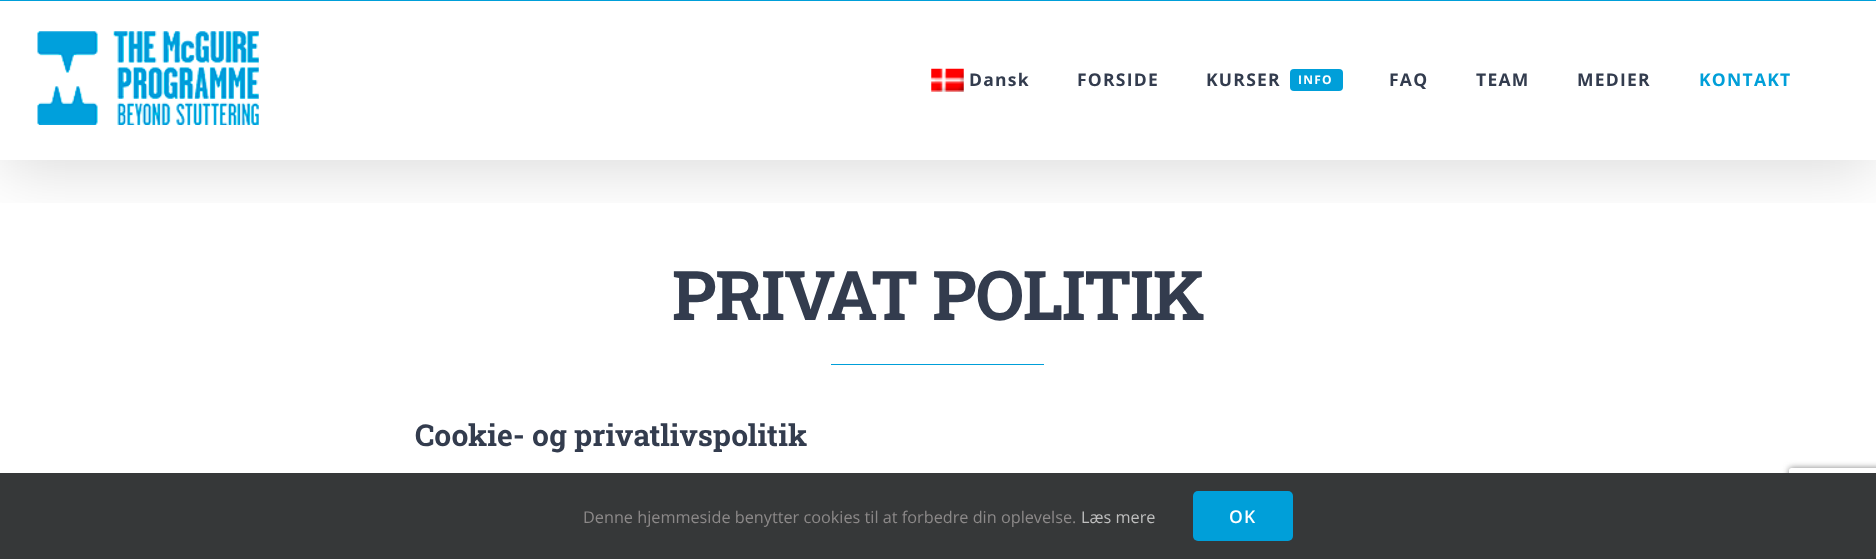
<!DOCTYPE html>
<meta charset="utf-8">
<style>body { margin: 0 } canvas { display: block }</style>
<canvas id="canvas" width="1876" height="559"></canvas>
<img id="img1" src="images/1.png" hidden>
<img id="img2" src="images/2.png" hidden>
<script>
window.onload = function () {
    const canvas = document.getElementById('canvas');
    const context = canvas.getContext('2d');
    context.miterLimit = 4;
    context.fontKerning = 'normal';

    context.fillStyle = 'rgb(255, 255, 255)';
    context.fillRect(0, 0, 1876, 559);
    context.save();
    context.beginPath();
    context.rect(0, 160, 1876, 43);
    context.clip();
    context.fillStyle = 'rgba(0, 0, 0, 0.14)';
    context.filter = 'blur(31px)';
    context.beginPath();
    context.rect(3, 15, 1871, 155);
    context.fill();
    context.filter = 'none';
    context.restore();
    context.fillStyle = 'rgb(0, 159, 217)';
    context.fillRect(0, 0, 1876, 1);
    context.drawImage(document.getElementById('img1'), 37, 31, 222, 94);
    context.drawImage(document.getElementById('img2'), 931, 68, 33, 24);
    context.beginPath();
    context.roundRect(1290, 69, 53, 22, 4);
    context.fill();
    context.fillRect(831, 364, 213, 1);
    context.save();
    context.beginPath();
    context.moveTo(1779, 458);
    context.lineTo(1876, 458);
    context.lineTo(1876, 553);
    context.lineTo(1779, 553);
    context.closePath();
    context.moveTo(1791.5, 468);
    context.lineTo(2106.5, 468);
    context.bezierCurveTo(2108, 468, 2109, 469, 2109, 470.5);
    context.lineTo(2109, 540.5);
    context.bezierCurveTo(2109, 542, 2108, 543, 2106.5, 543);
    context.lineTo(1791.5, 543);
    context.bezierCurveTo(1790, 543, 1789, 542, 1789, 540.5);
    context.lineTo(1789, 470.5);
    context.bezierCurveTo(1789, 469, 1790, 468, 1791.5, 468);
    context.closePath();
    context.clip('evenodd');
    context.fillStyle = 'rgb(128, 128, 128)';
    context.filter = 'blur(3px)';
    context.beginPath();
    context.roundRect(1789, 468, 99, 75, 2.5);
    context.fill();
    context.filter = 'none';
    context.restore();
    context.fillStyle = 'rgb(54, 56, 57)';
    context.fillRect(0, 473, 1876, 86);
    context.fillStyle = 'rgb(0, 159, 217)';
    context.beginPath();
    context.roundRect(1193, 491, 100, 50, 5);
    context.fill();
    context.letterSpacing = '1.25px';
    context.font = 'bold 17.5px Open Sans';
    context.fillStyle = 'rgb(51, 60, 78)';
    context.fillText('Dansk', 969, 86);
    context.fillText('FORSIDE', 1077, 86);
    context.fillText('KURSER', 1206, 86);
    context.font = 'bold 12px Open Sans';
    context.fillStyle = 'rgb(255, 255, 255)';
    context.fillText('INFO', 1298, 84);
    context.font = 'bold 17.5px Open Sans';
    context.fillStyle = 'rgb(51, 60, 78)';
    context.fillText('FAQ', 1389, 86);
    context.fillText('TEAM', 1476, 86);
    context.fillText('MEDIER', 1577, 86);
    context.fillStyle = 'rgb(0, 159, 217)';
    context.fillText('KONTAKT', 1699, 86);
    context.letterSpacing = '-1.25px';
    context.font = 'bold 68.75px Roboto Slab';
    context.fillStyle = 'rgb(51, 60, 78)';
    context.fillText('PRIVAT POLITIK', 672, 320);
    context.letterSpacing = '0px';
    context.font = 'bold 30px Roboto Slab';
    context.fillText('Cookie- og privatlivspolitik', 415, 446);
    context.font = '16.25px Open Sans';
    context.fillStyle = 'rgb(140, 137, 137)';
    context.fillText('Denne hjemmeside benytter cookies til at forbedre din oplevelse.', 583, 523);
    context.fillStyle = 'rgb(191, 191, 191)';
    context.fillText('Læs mere', 1081, 523);
    context.letterSpacing = '1.25px';
    context.font = '600 17.5px Open Sans';
    context.fillStyle = 'rgb(255, 255, 255)';
    context.fillText('OK', 1229, 523);
};
</script>
